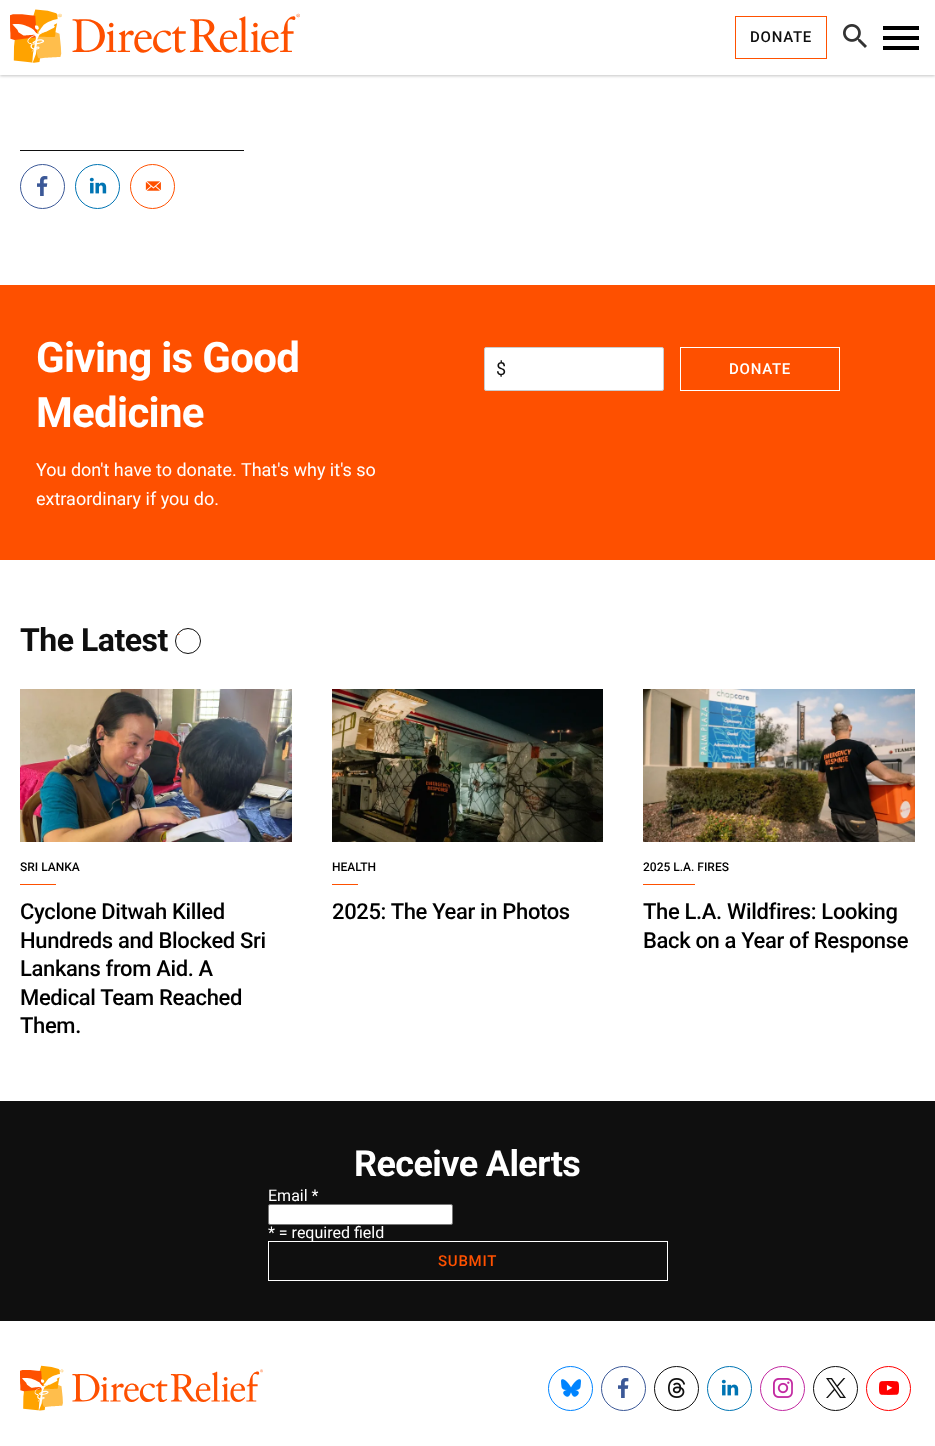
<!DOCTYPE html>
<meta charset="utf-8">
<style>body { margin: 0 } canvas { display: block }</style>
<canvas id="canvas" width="935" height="1446"></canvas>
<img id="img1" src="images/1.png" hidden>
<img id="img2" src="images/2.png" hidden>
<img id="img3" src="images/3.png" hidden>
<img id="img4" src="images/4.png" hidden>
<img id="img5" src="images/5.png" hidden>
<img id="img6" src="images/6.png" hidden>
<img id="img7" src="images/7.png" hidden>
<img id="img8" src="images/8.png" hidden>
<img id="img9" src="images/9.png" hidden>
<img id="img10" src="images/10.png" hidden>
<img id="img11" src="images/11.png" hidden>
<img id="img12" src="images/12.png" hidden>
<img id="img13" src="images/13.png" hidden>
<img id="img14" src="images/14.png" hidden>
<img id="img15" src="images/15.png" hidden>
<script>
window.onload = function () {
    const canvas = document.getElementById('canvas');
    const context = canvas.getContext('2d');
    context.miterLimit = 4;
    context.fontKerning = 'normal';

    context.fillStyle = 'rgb(255, 255, 255)';
    context.fillRect(0, 0, 935, 1446);
    context.fillStyle = 'rgba(0, 0, 0, 0.23)';
    context.filter = 'blur(1.5px)';
    context.beginPath();
    context.rect(0, 1, 935, 75);
    context.fill();
    context.filter = 'none';
    context.fillStyle = 'rgb(255, 255, 255)';
    context.fillRect(0, 0, 935, 75);
    context.drawImage(document.getElementById('img1'), 10, 9, 290, 54);
    context.strokeStyle = 'rgb(255, 81, 0)';
    context.strokeRect(735.5, 16.5, 91, 42);
    context.drawImage(document.getElementById('img2'), 843, 24, 24, 24);
    context.fillStyle = 'rgb(0, 0, 0)';
    context.beginPath();
    context.moveTo(883, 50);
    context.lineTo(919, 50);
    context.lineTo(919, 46);
    context.lineTo(883, 46);
    context.closePath();
    context.moveTo(883, 40);
    context.lineTo(919, 40);
    context.lineTo(919, 36);
    context.lineTo(883, 36);
    context.closePath();
    context.moveTo(883, 26);
    context.lineTo(883, 30);
    context.lineTo(919, 30);
    context.lineTo(919, 26);
    context.closePath();
    context.fill();
    context.fillStyle = 'rgb(15, 15, 15)';
    context.fillRect(20, 150, 224, 1);
    context.beginPath();
    context.arc(42.5, 186.5, 22, 0, 2 * Math.PI);
    context.strokeStyle = 'rgb(59, 88, 151)';
    context.stroke();
    context.drawImage(document.getElementById('img3'), 37, 176, 11, 20);
    context.beginPath();
    context.arc(97.5, 186.5, 22, 0, 2 * Math.PI);
    context.strokeStyle = 'rgb(0, 116, 179)';
    context.stroke();
    context.drawImage(document.getElementById('img4'), 89, 177, 18, 17);
    context.beginPath();
    context.arc(152.5, 186.5, 22, 0, 2 * Math.PI);
    context.strokeStyle = 'rgb(255, 81, 0)';
    context.stroke();
    context.drawImage(document.getElementById('img5'), 145, 181, 16, 10);
    context.fillStyle = 'rgb(254, 80, 0)';
    context.fillRect(0, 285, 935, 275);
    context.fillStyle = 'rgb(255, 255, 255)';
    context.beginPath();
    context.roundRect(484.5, 347.5, 179, 43, 1.5);
    context.fill();
    context.strokeStyle = 'rgb(204, 204, 204)';
    context.stroke();
    context.strokeStyle = 'rgb(255, 255, 255)';
    context.strokeRect(680.5, 347.5, 159, 43);
    context.beginPath();
    context.arc(188, 641, 12.5, 0, 2 * Math.PI);
    context.strokeStyle = 'rgb(15, 15, 15)';
    context.stroke();
    context.drawImage(document.getElementById('img6'), 178, 634, 2, 1);
    context.drawImage(document.getElementById('img7'), 20, 689, 272, 153);
    context.fillStyle = 'rgb(254, 80, 0)';
    context.fillRect(20, 884, 36, 1);
    context.drawImage(document.getElementById('img8'), 332, 689, 271, 153);
    context.fillRect(332, 884, 26, 1);
    context.drawImage(document.getElementById('img9'), 643, 689, 272, 153);
    context.fillRect(643, 884, 52, 1);
    context.fillStyle = 'rgb(15, 15, 15)';
    context.fillRect(0, 1101, 935, 220);
    context.fillStyle = 'rgb(255, 255, 255)';
    context.beginPath();
    context.roundRect(268.5, 1204.5, 184, 20, 1.5);
    context.fill();
    context.strokeStyle = 'rgb(118, 118, 118)';
    context.stroke();
    context.strokeStyle = 'rgb(255, 255, 255)';
    context.strokeRect(268.5, 1241.5, 399, 39);
    context.drawImage(document.getElementById('img10'), 20, 1365, 243, 46);
    context.beginPath();
    context.arc(570.5, 1388.5, 22, 0, 2 * Math.PI);
    context.strokeStyle = 'rgb(0, 132, 255)';
    context.stroke();
    context.drawImage(document.getElementById('img11'), 561, 1379, 20, 18);
    context.beginPath();
    context.arc(623.5, 1388.5, 22, 0, 2 * Math.PI);
    context.strokeStyle = 'rgb(59, 88, 151)';
    context.stroke();
    context.drawImage(document.getElementById('img3'), 618, 1378, 11, 20);
    context.beginPath();
    context.arc(676.5, 1388.5, 22, 0, 2 * Math.PI);
    context.strokeStyle = 'rgb(15, 15, 15)';
    context.stroke();
    context.drawImage(document.getElementById('img12'), 668, 1378, 17, 20);
    context.beginPath();
    context.arc(729.5, 1388.5, 22, 0, 2 * Math.PI);
    context.strokeStyle = 'rgb(0, 116, 179)';
    context.stroke();
    context.drawImage(document.getElementById('img4'), 721, 1379, 18, 17);
    context.beginPath();
    context.arc(782.5, 1388.5, 22, 0, 2 * Math.PI);
    context.strokeStyle = 'rgb(194, 41, 161)';
    context.stroke();
    context.drawImage(document.getElementById('img13'), 773, 1378, 20, 20);
    context.beginPath();
    context.arc(835.5, 1388.5, 22, 0, 2 * Math.PI);
    context.strokeStyle = 'rgb(15, 15, 15)';
    context.stroke();
    context.drawImage(document.getElementById('img14'), 826, 1378, 20, 20);
    context.beginPath();
    context.arc(888.5, 1388.5, 22, 0, 2 * Math.PI);
    context.strokeStyle = 'rgb(255, 0, 0)';
    context.stroke();
    context.drawImage(document.getElementById('img15'), 879, 1381, 20, 14);
    context.letterSpacing = '0.75px';
    context.font = '500 15px Roboto';
    context.fillStyle = 'rgb(15, 15, 15)';
    context.fillText('DONATE', 750, 42);
    context.letterSpacing = '-0.7px';
    context.font = 'bold 42px Roboto';
    context.fillStyle = 'rgb(255, 255, 255)';
    context.fillText('Giving is Good', 36, 372);
    context.fillText('Medicine', 36, 427);
    context.letterSpacing = '0px';
    context.font = '18px Roboto';
    context.fillText('You don\'t have to donate. That\'s why it\'s so', 36, 476);
    context.fillText('extraordinary if you do.', 36, 505);
    context.fillStyle = 'rgb(15, 15, 15)';
    context.fillText('$', 496, 375);
    context.letterSpacing = '0.75px';
    context.font = '500 15px Roboto';
    context.fillStyle = 'rgb(255, 255, 255)';
    context.fillText('DONATE', 729, 374);
    context.letterSpacing = '-0.5px';
    context.font = 'bold 32px Roboto';
    context.fillStyle = 'rgb(15, 15, 15)';
    context.fillText('The Latest', 20, 651);
    context.letterSpacing = '0px';
    context.font = '500 12px Roboto';
    context.fillStyle = 'rgb(0, 0, 0)';
    context.fillText('SRI LANKA', 20, 871);
    context.letterSpacing = '-0.35px';
    context.font = '500 22px Roboto';
    context.fillText('Cyclone Ditwah Killed', 20, 919);
    context.fillText('Hundreds and Blocked Sri', 20, 948);
    context.fillText('Lankans from Aid. A', 20, 976);
    context.fillText('Medical Team Reached', 20, 1005);
    context.fillText('Them.', 20, 1033);
    context.letterSpacing = '0px';
    context.font = '500 12px Roboto';
    context.fillText('HEALTH', 332, 871);
    context.letterSpacing = '-0.35px';
    context.font = '500 22px Roboto';
    context.fillText('2025: The Year in Photos', 332, 919);
    context.letterSpacing = '0px';
    context.font = '500 12px Roboto';
    context.fillText('2025 L.A. FIRES', 643, 871);
    context.letterSpacing = '-0.35px';
    context.font = '500 22px Roboto';
    context.fillText('The L.A. Wildfires: Looking', 643, 919);
    context.fillText('Back on a Year of Response', 643, 948);
    context.letterSpacing = '-0.6px';
    context.font = 'bold 36px Roboto';
    context.fillStyle = 'rgb(255, 255, 255)';
    context.fillText('Receive Alerts', 354, 1176);
    context.letterSpacing = '0px';
    context.font = '16px Roboto';
    context.fillText('Email *', 268, 1201);
    context.fillText('* = required field', 268, 1238);
    context.letterSpacing = '0.75px';
    context.font = '500 15px Roboto';
    context.fillStyle = 'rgb(255, 81, 0)';
    context.fillText('SUBMIT', 438, 1266);
};
</script>
